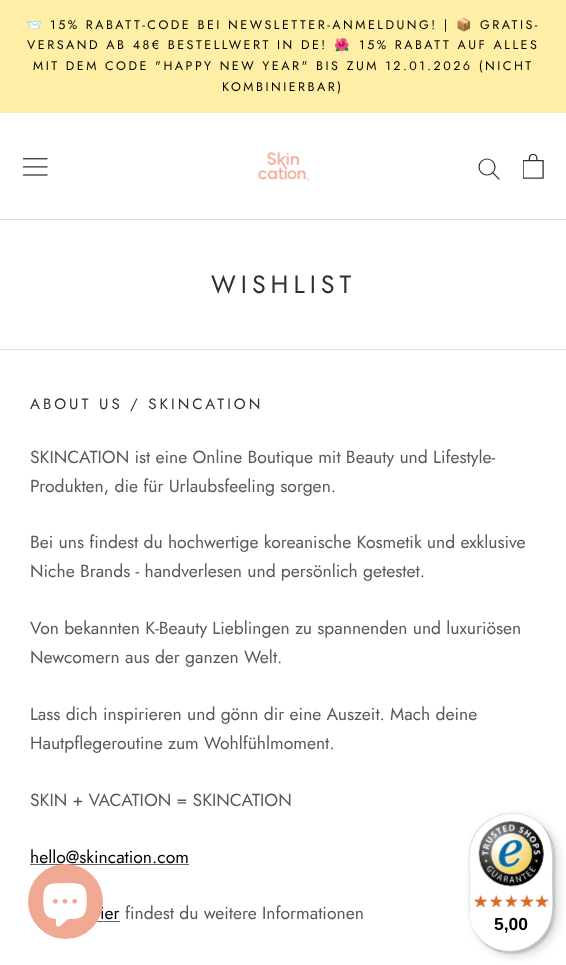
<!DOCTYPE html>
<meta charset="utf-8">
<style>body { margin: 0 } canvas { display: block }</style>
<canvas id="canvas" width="566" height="965"></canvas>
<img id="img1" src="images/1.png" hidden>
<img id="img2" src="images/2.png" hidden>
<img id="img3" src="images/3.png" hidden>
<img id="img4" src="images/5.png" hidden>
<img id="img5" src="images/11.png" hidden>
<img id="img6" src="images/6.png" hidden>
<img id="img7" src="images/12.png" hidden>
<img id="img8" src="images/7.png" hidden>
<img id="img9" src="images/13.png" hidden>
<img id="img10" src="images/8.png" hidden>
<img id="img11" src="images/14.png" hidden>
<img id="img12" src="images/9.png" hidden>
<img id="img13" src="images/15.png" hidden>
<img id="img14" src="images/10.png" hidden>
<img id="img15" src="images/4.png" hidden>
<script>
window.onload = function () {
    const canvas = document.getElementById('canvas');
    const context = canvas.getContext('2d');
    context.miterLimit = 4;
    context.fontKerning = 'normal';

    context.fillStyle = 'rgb(255, 255, 255)';
    context.fillRect(0, 0, 566, 965);
    context.fillStyle = 'rgb(255, 239, 166)';
    context.fillRect(0, 0, 566, 113);
    context.fillStyle = 'rgb(224, 224, 224)';
    context.fillRect(0, 219, 566, 1);
    context.drawImage(document.getElementById('img1'), 23, 158, 25, 18);
    context.drawImage(document.getElementById('img2'), 257, 151, 53, 30);
    context.beginPath();
    context.moveTo(499, 179);
    context.lineTo(492.5, 172.5);
    context.strokeStyle = 'rgb(48, 48, 48)';
    context.lineWidth = 1.2;
    context.lineCap = 'square';
    context.stroke();
    context.beginPath();
    context.arc(487, 167, 8, 0, 2 * Math.PI);
    context.stroke();
    context.drawImage(document.getElementById('img3'), 523, 154, 21, 25);
    context.fillRect(0, 349, 566, 1);
    context.fillStyle = 'rgb(102, 102, 102)';
    context.fillRect(30, 864, 159, 1);
    context.fillRect(88, 921, 32, 1);
    context.fillStyle = 'rgba(0, 0, 0, 0.15)';
    context.filter = 'blur(5px)';
    context.beginPath();
    context.roundRect(473, 816, 85, 140, 42.5);
    context.fill();
    context.filter = 'none';
    context.filter = 'blur(1px)';
    context.beginPath();
    context.roundRect(470, 814, 85, 140, 42.5);
    context.fill();
    context.filter = 'none';
    context.fillStyle = 'rgb(255, 255, 255)';
    context.beginPath();
    context.roundRect(469, 813, 85, 140, 42.5);
    context.fill();
    context.fillStyle = 'rgb(229, 229, 229)';
    context.beginPath();
    context.moveTo(512, 814);
    context.bezierCurveTo(524, 814, 534, 818, 542, 826);
    context.bezierCurveTo(521, 804, 484, 811, 472, 839);
    context.bezierCurveTo(467, 851, 469, 869, 469, 883);
    context.bezierCurveTo(469, 904, 466, 925, 482, 941);
    context.bezierCurveTo(474, 933, 470, 923, 470, 911);
    context.lineTo(470, 856);
    context.bezierCurveTo(470, 833, 489, 814, 512, 814);
    context.closePath();
    context.fill();
    context.fillStyle = 'rgba(0, 0, 0, 0.2)';
    context.beginPath();
    context.moveTo(474, 930);
    context.bezierCurveTo(481, 944, 495, 953, 512, 953);
    context.bezierCurveTo(535, 953, 554, 934, 554, 910);
    context.lineTo(554, 856);
    context.bezierCurveTo(554, 843, 549, 832, 541, 825);
    context.bezierCurveTo(555, 840, 552, 862, 552, 882);
    context.bezierCurveTo(552, 898, 555, 918, 545, 932);
    context.bezierCurveTo(527, 958, 489, 957, 474, 930);
    context.closePath();
    context.fill();
    context.fillStyle = 'rgba(50, 50, 50, 0.2)';
    context.beginPath();
    context.moveTo(481, 941);
    context.bezierCurveTo(502, 961, 539, 955, 551, 927);
    context.bezierCurveTo(556, 915, 554, 897, 554, 883);
    context.bezierCurveTo(554, 862, 557, 841, 542, 825);
    context.bezierCurveTo(549, 833, 553, 843, 553, 854);
    context.lineTo(553, 909);
    context.bezierCurveTo(553, 933, 534, 952, 510, 952);
    context.bezierCurveTo(499, 952, 489, 948, 481, 941);
    context.closePath();
    context.fill();
    context.fillStyle = 'rgba(255, 255, 255, 0.3)';
    context.beginPath();
    context.moveTo(479, 938);
    context.bezierCurveTo(500, 962, 538, 956, 551, 927);
    context.bezierCurveTo(556, 915, 554, 897, 554, 883);
    context.bezierCurveTo(554, 864, 557, 843, 543, 827);
    context.bezierCurveTo(556, 843, 553, 863, 553, 882);
    context.bezierCurveTo(553, 895, 555, 913, 550, 926);
    context.bezierCurveTo(538, 955, 500, 961, 479, 938);
    context.closePath();
    context.fill();
    context.drawImage(document.getElementById('img4'), 478, 821, 66, 66);
    context.drawImage(document.getElementById('img5'), 474, 895, 13, 13);
    context.drawImage(document.getElementById('img6'), 473, 895, 15, 13);
    context.drawImage(document.getElementById('img7'), 490, 895, 12, 12);
    context.drawImage(document.getElementById('img8'), 490, 895, 13, 12);
    context.drawImage(document.getElementById('img9'), 505, 895, 12, 13);
    context.drawImage(document.getElementById('img10'), 505, 895, 13, 12);
    context.drawImage(document.getElementById('img11'), 520, 895, 14, 12);
    context.drawImage(document.getElementById('img12'), 520, 895, 14, 13);
    context.drawImage(document.getElementById('img13'), 535, 895, 14, 13);
    context.drawImage(document.getElementById('img14'), 535, 895, 14, 13);
    context.letterSpacing = '2.5px';
    context.font = '12.5px Noto Color Emoji';
    context.fillStyle = 'rgb(0, 0, 0)';
    context.fillText('📨', 26, 29);
    context.font = '12.5px Jost';
    context.fillText('15% RABATT-CODE BEI NEWSLETTER-ANMELDUNG! |', 50, 29);
    context.font = '12.5px Noto Color Emoji';
    context.fillText('📦', 456, 29);
    context.font = '12.5px Jost';
    context.fillText('GRATIS-', 480, 29);
    context.fillText('VERSAND AB 48€ BESTELLWERT IN DE!', 27, 49);
    context.font = '12.5px Noto Color Emoji';
    context.fillText('🌺', 334, 49);
    context.font = '12.5px Jost';
    context.fillText('15% RABATT AUF ALLES', 359, 49);
    context.fillText('MIT DEM CODE "HAPPY NEW YEAR" BIS ZUM 12.01.2026 (NICHT', 33, 70);
    context.fillText('KOMBINIERBAR)', 222, 91);
    context.letterSpacing = '5px';
    context.font = '25px Jost';
    context.fillStyle = 'rgb(48, 48, 48)';
    context.fillText('WISHLIST', 211, 293);
    context.letterSpacing = '3px';
    context.font = '15px Jost';
    context.fillText('ABOUT US / SKINCATION', 30, 409);
    context.letterSpacing = '0px';
    context.font = '17.5px Jost';
    context.fillStyle = 'rgb(89, 89, 89)';
    context.fillText('SKINCATION ist eine Online Boutique mit Beauty und Lifestyle-', 30, 463);
    context.fillText('Produkten, die für Urlaubsfeeling sorgen.', 30, 492);
    context.fillText('Bei uns findest du hochwertige koreanische Kosmetik und exklusive', 30, 548);
    context.fillText('Niche Brands - handverlesen und persönlich getestet.', 30, 577);
    context.fillText('Von bekannten K-Beauty Lieblingen zu spannenden und luxuriösen', 30, 634);
    context.fillText('Newcomern aus der ganzen Welt.', 30, 663);
    context.fillText('Lass dich inspirieren und gönn dir eine Auszeit. Mach deine', 30, 720);
    context.fillText('Hautpflegeroutine zum Wohlfühlmoment.', 30, 749);
    context.fillText('SKIN + VACATION = SKINCATION', 30, 806);
    context.fillStyle = 'rgb(0, 0, 0)';
    context.fillText('hello@skincation.com', 30, 863);
    context.fillText('ier', 100, 919);
    context.fillStyle = 'rgb(89, 89, 89)';
    context.fillText('findest du weitere Informationen', 125, 919);
    context.fillStyle = 'rgb(242, 169, 148)';
    context.beginPath();
    context.arc(65.5, 901.5, 37.5, 0, 2 * Math.PI);
    context.fill();
    context.drawImage(document.getElementById('img15'), 43, 883, 44, 44);
    context.font = 'bold 17.5px Liberation Sans';
    context.fillStyle = 'rgb(0, 0, 0)';
    context.fillText('5,00', 494, 930);
};
</script>
